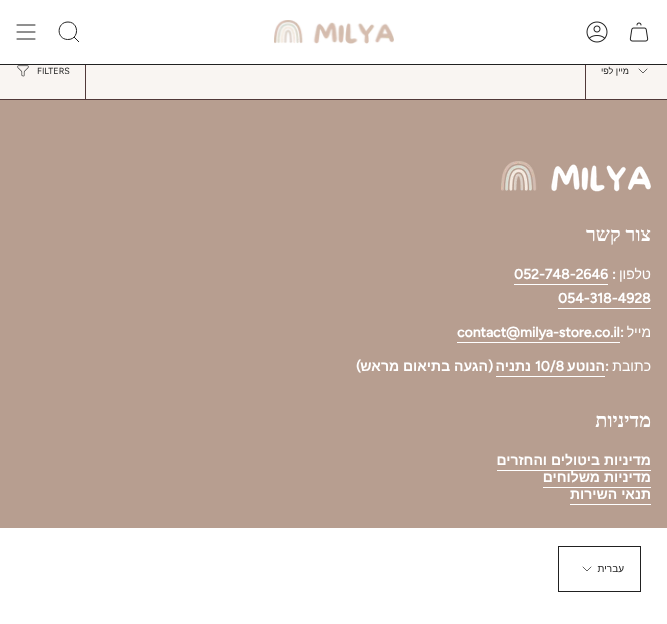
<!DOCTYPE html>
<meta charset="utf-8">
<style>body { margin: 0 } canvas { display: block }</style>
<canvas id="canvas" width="667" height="624"></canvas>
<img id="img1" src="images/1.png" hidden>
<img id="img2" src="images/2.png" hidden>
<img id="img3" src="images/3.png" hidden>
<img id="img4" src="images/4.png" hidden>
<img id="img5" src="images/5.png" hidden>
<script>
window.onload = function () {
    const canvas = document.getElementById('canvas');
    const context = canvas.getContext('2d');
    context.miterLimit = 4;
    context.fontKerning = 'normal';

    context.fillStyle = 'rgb(255, 255, 255)';
    context.fillRect(0, 0, 667, 624);
    context.drawImage(document.getElementById('img1'), 629, 22, 20, 20);
    context.drawImage(document.getElementById('img2'), 586, 21, 22, 22);
    context.drawImage(document.getElementById('img3'), 274, 20, 120, 24);
    context.beginPath();
    context.moveTo(68, 22);
    context.bezierCurveTo(79.5, 22, 79.5, 40, 67.5, 39.5);
    context.bezierCurveTo(56, 39, 56.5, 22, 68, 22);
    context.closePath();
    context.moveTo(74, 37);
    context.lineTo(79, 42);
    context.strokeStyle = 'rgb(33, 33, 33)';
    context.stroke();
    context.beginPath();
    context.moveTo(17, 25);
    context.lineTo(35, 25);
    context.moveTo(17, 32);
    context.lineTo(35, 32);
    context.moveTo(17, 39);
    context.lineTo(35, 39);
    context.lineCap = 'round';
    context.lineJoin = 'round';
    context.stroke();
    context.fillStyle = 'rgb(33, 33, 33)';
    context.fillRect(0, 64, 667, 1);
    context.fillStyle = 'rgb(249, 245, 242)';
    context.fillRect(0, 65, 667, 34);
    context.fillStyle = 'rgb(81, 57, 57)';
    context.fillRect(0, 99, 667, 1);
    context.fillRect(585, 65, 1, 34);
    context.beginPath();
    context.moveTo(639, 69);
    context.lineTo(643, 73);
    context.lineTo(647, 69);
    context.lineWidth = 0.7;
    context.stroke();
    context.fillRect(85, 65, 1, 34);
    context.drawImage(document.getElementById('img4'), 17, 65, 12, 12);
    context.fillStyle = 'rgb(183, 158, 144)';
    context.fillRect(0, 100, 667, 428);
    context.drawImage(document.getElementById('img5'), 501, 161, 150, 31);
    context.fillStyle = 'rgb(255, 255, 255)';
    context.fillRect(514, 284, 94, 1);
    context.fillRect(558, 308, 93, 1);
    context.fillRect(457, 342, 163, 1);
    context.fillRect(496, 376, 109, 1);
    context.fillRect(497, 470, 154, 1);
    context.fillRect(543, 487, 108, 1);
    context.fillRect(570, 504, 81, 1);
    context.lineWidth = 1;
    context.lineJoin = 'miter';
    context.strokeRect(558.5, 546.5, 82, 45);
    context.beginPath();
    context.moveTo(583, 567);
    context.lineTo(587, 571);
    context.lineTo(591, 567);
    context.lineWidth = 0.7;
    context.lineJoin = 'round';
    context.stroke();
    context.direction = 'rtl';
    context.font = '9px Liberation Sans';
    context.fillStyle = 'rgb(33, 33, 33)';
    context.fillText('מיין לפי', 629, 74);
    context.direction = 'ltr';
    context.font = '9px Figtree';
    context.fillText('FILTERS', 37, 74);
    context.direction = 'rtl';
    context.font = 'bold 20px Liberation Serif';
    context.fillStyle = 'rgb(255, 255, 255)';
    context.fillText('צור קשר', 651, 241);
    context.font = '14px Liberation Sans';
    context.fillText('טלפון', 651, 279);
    context.direction = 'ltr';
    context.font = 'bold 14px Figtree';
    context.fillText(':', 612, 279);
    context.fillText('052-748-2646', 514, 279);
    context.fillText('054-318-4928', 558, 303);
    context.direction = 'rtl';
    context.font = '14px Liberation Sans';
    context.fillText('מייל', 651, 337);
    context.direction = 'ltr';
    context.font = 'bold 14px Figtree';
    context.fillText(':', 620, 337);
    context.fillText('contact@milya-store.co.il', 457, 337);
    context.direction = 'rtl';
    context.font = '14px Liberation Sans';
    context.fillText('כתובת', 651, 371);
    context.direction = 'ltr';
    context.font = 'bold 14px Figtree';
    context.fillText(':', 605, 371);
    context.direction = 'rtl';
    context.font = 'bold 14px Liberation Sans';
    context.fillText('הנוטע', 605, 371);
    context.direction = 'ltr';
    context.font = 'bold 14px Figtree';
    context.fillText('10/8', 535, 371);
    context.direction = 'rtl';
    context.font = 'bold 14px Liberation Sans';
    context.fillText('נתניה', 531, 371);
    context.font = 'bold 14px Figtree';
    context.fillText('(', 493, 371);
    context.font = 'bold 14px Liberation Sans';
    context.fillText('הגעה בתיאום מראש', 488, 371);
    context.font = 'bold 14px Figtree';
    context.fillText(')', 361, 371);
    context.font = 'bold 20px Liberation Serif';
    context.fillText('מדיניות', 651, 427);
    context.font = 'bold 14px Liberation Sans';
    context.fillText('מדיניות ביטולים והחזרים', 651, 465);
    context.fillText('מדיניות משלוחים', 651, 482);
    context.fillText('תנאי השירות', 651, 499);
    context.font = '10px Liberation Sans';
    context.fillStyle = 'rgb(33, 33, 33)';
    context.fillText('עברית', 624, 572);
};
</script>
